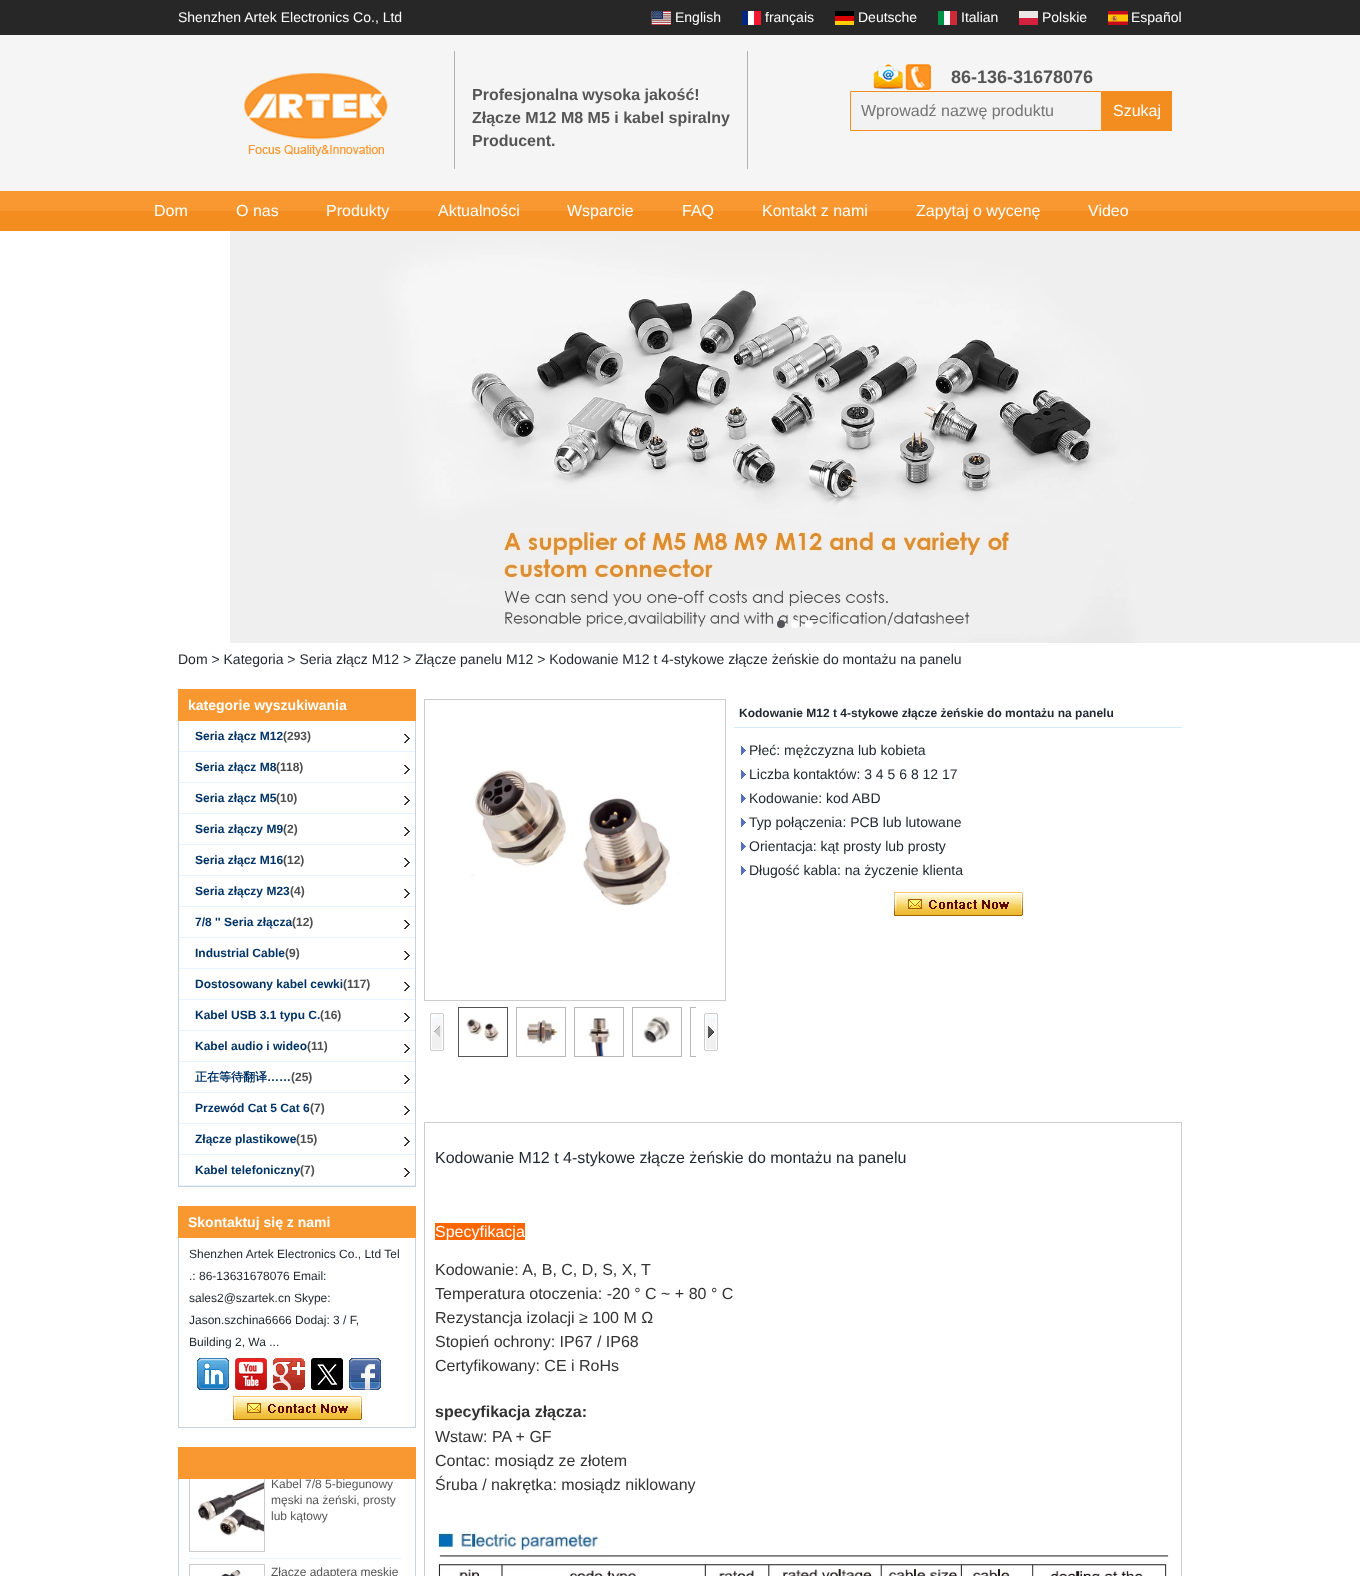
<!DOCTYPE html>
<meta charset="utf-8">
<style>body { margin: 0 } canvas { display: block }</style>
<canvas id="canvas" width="1360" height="1576"></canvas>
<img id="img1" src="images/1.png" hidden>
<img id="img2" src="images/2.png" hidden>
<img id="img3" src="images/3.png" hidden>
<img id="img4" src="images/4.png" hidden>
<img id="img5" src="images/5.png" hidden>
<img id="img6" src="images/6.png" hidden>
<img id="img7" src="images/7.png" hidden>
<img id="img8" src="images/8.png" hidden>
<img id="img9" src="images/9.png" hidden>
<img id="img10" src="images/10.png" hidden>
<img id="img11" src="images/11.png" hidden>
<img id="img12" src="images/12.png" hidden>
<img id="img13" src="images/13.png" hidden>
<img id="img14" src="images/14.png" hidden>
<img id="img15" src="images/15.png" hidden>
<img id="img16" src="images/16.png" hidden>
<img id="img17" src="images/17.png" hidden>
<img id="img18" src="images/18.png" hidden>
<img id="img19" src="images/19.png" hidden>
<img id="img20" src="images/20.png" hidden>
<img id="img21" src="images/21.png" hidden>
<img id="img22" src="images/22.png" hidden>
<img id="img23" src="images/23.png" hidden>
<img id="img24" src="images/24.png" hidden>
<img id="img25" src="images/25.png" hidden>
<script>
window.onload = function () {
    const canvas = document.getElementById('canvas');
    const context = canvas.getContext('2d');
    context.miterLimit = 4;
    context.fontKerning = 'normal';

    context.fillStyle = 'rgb(255, 255, 255)';
    context.fillRect(0, 0, 1360, 1576);
    context.fillStyle = 'rgb(39, 39, 39)';
    context.fillRect(0, 0, 1360, 35);
    context.drawImage(document.getElementById('img1'), 651, 11, 20, 14);
    context.fillStyle = 'rgb(255, 255, 255)';
    context.fillRect(748, 11, 6, 14);
    context.fillStyle = 'rgb(0, 38, 127)';
    context.fillRect(742, 11, 6, 14);
    context.fillStyle = 'rgb(243, 24, 48)';
    context.fillRect(754, 11, 7, 14);
    context.fillStyle = 'rgb(255, 206, 0)';
    context.fillRect(835, 21, 19, 4);
    context.fillStyle = 'rgb(0, 0, 0)';
    context.fillRect(835, 11, 19, 5);
    context.fillStyle = 'rgb(221, 0, 0)';
    context.fillRect(835, 16, 19, 5);
    context.fillStyle = 'rgb(255, 255, 255)';
    context.fillRect(944, 11, 6, 14);
    context.fillStyle = 'rgb(0, 146, 70)';
    context.fillRect(938, 11, 6, 14);
    context.fillStyle = 'rgb(206, 43, 55)';
    context.fillRect(950, 11, 7, 14);
    context.fillStyle = 'rgb(233, 232, 231)';
    context.fillRect(1019, 11, 19, 7);
    context.fillStyle = 'rgb(212, 33, 61)';
    context.fillRect(1019, 18, 19, 7);
    context.drawImage(document.getElementById('img2'), 1108, 11, 20, 14);
    context.fillStyle = 'rgb(245, 245, 245)';
    context.fillRect(0, 35, 1360, 156);
    context.drawImage(document.getElementById('img3'), 244, 73, 144, 83);
    context.fillStyle = 'rgb(178, 178, 178)';
    context.fillRect(747, 51, 1, 118);
    context.fillRect(454, 51, 1, 118);
    context.drawImage(document.getElementById('img4'), 873, 64, 30, 25);
    context.drawImage(document.getElementById('img5'), 905, 64, 26, 26);
    context.fillStyle = 'rgb(242, 242, 242)';
    context.beginPath();
    context.rect(850.5, 91.5, 251, 39);
    context.fill();
    context.strokeStyle = 'rgb(243, 141, 32)';
    context.stroke();
    context.fillStyle = 'rgb(243, 141, 32)';
    context.fillRect(1102, 91, 70, 40);
    context.drawImage(document.getElementById('img6'), 0, 191, 1360, 40);
    context.drawImage(document.getElementById('img7'), 230, 231, 1130, 412);
    context.fillStyle = 'rgb(84, 83, 86)';
    context.beginPath();
    context.arc(781, 624, 4, 0, 2 * Math.PI);
    context.fill();
    context.fillStyle = 'rgb(255, 255, 255)';
    context.beginPath();
    context.arc(795, 624, 4, 0, 2 * Math.PI);
    context.fill();
    context.beginPath();
    context.arc(809, 624, 4, 0, 2 * Math.PI);
    context.fill();
    context.strokeStyle = 'rgb(198, 210, 224)';
    context.strokeRect(178.5, 689.5, 237, 497);
    context.fillStyle = 'rgb(249, 152, 49)';
    context.fillRect(178, 689, 238, 32);
    context.drawImage(document.getElementById('img8'), 404, 734, 6, 9);
    context.fillStyle = 'rgb(231, 243, 255)';
    context.fillRect(179, 751, 236, 1);
    context.drawImage(document.getElementById('img8'), 404, 765, 6, 9);
    context.fillRect(179, 782, 236, 1);
    context.drawImage(document.getElementById('img8'), 404, 796, 6, 9);
    context.fillRect(179, 813, 236, 1);
    context.drawImage(document.getElementById('img8'), 404, 827, 6, 9);
    context.fillRect(179, 844, 236, 1);
    context.drawImage(document.getElementById('img8'), 404, 858, 6, 9);
    context.fillRect(179, 875, 236, 1);
    context.drawImage(document.getElementById('img8'), 404, 889, 6, 9);
    context.fillRect(179, 906, 236, 1);
    context.drawImage(document.getElementById('img8'), 404, 920, 6, 9);
    context.fillRect(179, 937, 236, 1);
    context.drawImage(document.getElementById('img8'), 404, 951, 6, 9);
    context.fillRect(179, 968, 236, 1);
    context.drawImage(document.getElementById('img8'), 404, 982, 6, 9);
    context.fillRect(179, 999, 236, 1);
    context.drawImage(document.getElementById('img8'), 404, 1013, 6, 9);
    context.fillRect(179, 1030, 236, 1);
    context.drawImage(document.getElementById('img8'), 404, 1044, 6, 9);
    context.fillRect(179, 1061, 236, 1);
    context.drawImage(document.getElementById('img8'), 404, 1075, 6, 9);
    context.fillRect(179, 1092, 236, 1);
    context.drawImage(document.getElementById('img8'), 404, 1106, 6, 9);
    context.fillRect(179, 1123, 236, 1);
    context.drawImage(document.getElementById('img8'), 404, 1137, 6, 9);
    context.fillRect(179, 1154, 236, 1);
    context.drawImage(document.getElementById('img8'), 404, 1168, 6, 9);
    context.fillRect(179, 1185, 236, 1);
    context.strokeRect(178.5, 1206.5, 237, 221);
    context.fillStyle = 'rgb(249, 152, 49)';
    context.fillRect(178, 1206, 238, 32);
    context.drawImage(document.getElementById('img9'), 197, 1358, 32, 32);
    context.drawImage(document.getElementById('img10'), 235, 1358, 32, 32);
    context.drawImage(document.getElementById('img11'), 273, 1358, 32, 32);
    context.drawImage(document.getElementById('img12'), 311, 1358, 32, 32);
    context.drawImage(document.getElementById('img13'), 349, 1358, 32, 32);
    context.drawImage(document.getElementById('img14'), 233, 1396, 129, 24);
    context.strokeRect(178.5, 1447.5, 237, 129);
    context.fillRect(178, 1447, 238, 32);
    context.fillStyle = 'rgb(231, 243, 255)';
    context.fillRect(189, 1558, 212, 1);
    context.save();
    context.beginPath();
    context.rect(179, 1479, 243, 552);
    context.clip();
    context.strokeStyle = 'rgb(204, 204, 204)';
    context.strokeRect(189.5, 1476.5, 75, 75);
    context.restore();
    context.drawImage(document.getElementById('img15'), 198, 1482, 66, 54);
    context.strokeStyle = 'rgb(204, 204, 204)';
    context.strokeRect(189.5, 1564.5, 75, 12);
    context.drawImage(document.getElementById('img16'), 221, 1569, 20, 7);
    context.strokeRect(424.5, 699.5, 301, 301);
    context.drawImage(document.getElementById('img17'), 471, 770, 208, 136);
    context.drawImage(document.getElementById('img18'), 430, 1013, 14, 38);
    context.strokeStyle = 'rgb(85, 85, 85)';
    context.strokeRect(458.5, 1007.5, 49, 49);
    context.drawImage(document.getElementById('img19'), 466, 1018, 33, 24);
    context.strokeStyle = 'rgb(184, 184, 184)';
    context.strokeRect(516.5, 1007.5, 49, 49);
    context.drawImage(document.getElementById('img20'), 525, 1019, 38, 27);
    context.strokeRect(574.5, 1007.5, 49, 49);
    context.drawImage(document.getElementById('img21'), 588, 1018, 22, 38);
    context.strokeRect(632.5, 1007.5, 49, 49);
    context.drawImage(document.getElementById('img22'), 643, 1016, 28, 28);
    context.drawImage(document.getElementById('img23'), 704, 1013, 14, 38);
    context.save();
    context.beginPath();
    context.rect(454, 1007, 242, 52);
    context.clip();
    context.strokeRect(690.5, 1007.5, 49, 49);
    context.restore();
    context.fillStyle = 'rgb(208, 237, 253)';
    context.fillRect(734, 727, 448, 1);
    context.drawImage(document.getElementById('img24'), 741, 746, 5, 9);
    context.drawImage(document.getElementById('img24'), 741, 770, 5, 9);
    context.drawImage(document.getElementById('img24'), 741, 794, 5, 9);
    context.drawImage(document.getElementById('img24'), 741, 818, 5, 9);
    context.drawImage(document.getElementById('img24'), 741, 842, 5, 9);
    context.drawImage(document.getElementById('img24'), 741, 866, 5, 9);
    context.drawImage(document.getElementById('img14'), 894, 892, 129, 24);
    context.strokeStyle = 'rgb(204, 204, 204)';
    context.strokeRect(424.5, 1122.5, 757, 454);
    context.fillStyle = 'rgb(255, 102, 0)';
    context.fillRect(435, 1223, 90, 17);
    context.drawImage(document.getElementById('img25'), 438, 1531, 731, 45);
    context.font = '14px Liberation Sans';
    context.fillStyle = 'rgb(255, 255, 255)';
    context.fillText('Shenzhen Artek Electronics Co., Ltd', 178, 22);
    context.fillText('English', 675, 22);
    context.fillText('français', 765, 22);
    context.fillText('Deutsche', 858, 22);
    context.fillText('Italian', 961, 22);
    context.fillText('Polskie', 1042, 22);
    context.fillText('Español', 1131, 22);
    context.font = 'bold 16px Liberation Sans';
    context.fillStyle = 'rgb(85, 85, 85)';
    context.fillText('Profesjonalna wysoka jakość!', 472, 100);
    context.fillText('Złącze M12 M8 M5 i kabel spiralny', 472, 123);
    context.fillText('Producent.', 472, 146);
    context.font = 'bold 18px Liberation Sans';
    context.fillText('86-136-31678076', 951, 83);
    context.font = '16px Liberation Sans';
    context.fillStyle = 'rgb(117, 117, 117)';
    context.fillText('Wprowadź nazwę produktu', 861, 116);
    context.fillStyle = 'rgb(255, 255, 255)';
    context.fillText('Szukaj', 1113, 116);
    context.fillText('Dom', 154, 216);
    context.fillText('O nas', 236, 216);
    context.fillText('Produkty', 326, 216);
    context.fillText('Aktualności', 438, 216);
    context.fillText('Wsparcie', 567, 216);
    context.fillText('FAQ', 682, 216);
    context.fillText('Kontakt z nami', 762, 216);
    context.fillText('Zapytaj o wycenę', 916, 216);
    context.fillText('Video', 1088, 216);
    context.font = '14px Liberation Sans';
    context.fillStyle = 'rgb(35, 41, 50)';
    context.fillText('Dom > Kategoria > Seria złącz M12 > Złącze panelu M12 > Kodowanie M12 t 4-stykowe złącze żeńskie do montażu na panelu', 178, 664);
    context.font = 'bold 14px Liberation Sans';
    context.fillStyle = 'rgb(255, 255, 255)';
    context.fillText('kategorie wyszukiwania', 188, 710);
    context.font = 'bold 12px Liberation Sans';
    context.fillStyle = 'rgb(0, 51, 102)';
    context.fillText('Seria złącz M12', 195, 740);
    context.fillStyle = 'rgb(78, 78, 78)';
    context.fillText('(293)', 283, 740);
    context.fillStyle = 'rgb(0, 51, 102)';
    context.fillText('Seria złącz M8', 195, 771);
    context.fillStyle = 'rgb(78, 78, 78)';
    context.fillText('(118)', 276, 771);
    context.fillStyle = 'rgb(0, 51, 102)';
    context.fillText('Seria złącz M5', 195, 802);
    context.fillStyle = 'rgb(78, 78, 78)';
    context.fillText('(10)', 276, 802);
    context.fillStyle = 'rgb(0, 51, 102)';
    context.fillText('Seria złączy M9', 195, 833);
    context.fillStyle = 'rgb(78, 78, 78)';
    context.fillText('(2)', 283, 833);
    context.fillStyle = 'rgb(0, 51, 102)';
    context.fillText('Seria złącz M16', 195, 864);
    context.fillStyle = 'rgb(78, 78, 78)';
    context.fillText('(12)', 283, 864);
    context.fillStyle = 'rgb(0, 51, 102)';
    context.fillText('Seria złączy M23', 195, 895);
    context.fillStyle = 'rgb(78, 78, 78)';
    context.fillText('(4)', 290, 895);
    context.fillStyle = 'rgb(0, 51, 102)';
    context.fillText('7/8 \'\' Seria złącza', 195, 926);
    context.fillStyle = 'rgb(78, 78, 78)';
    context.fillText('(12)', 292, 926);
    context.fillStyle = 'rgb(0, 51, 102)';
    context.fillText('Industrial Cable', 195, 957);
    context.fillStyle = 'rgb(78, 78, 78)';
    context.fillText('(9)', 285, 957);
    context.fillStyle = 'rgb(0, 51, 102)';
    context.fillText('Dostosowany kabel cewki', 195, 988);
    context.fillStyle = 'rgb(78, 78, 78)';
    context.fillText('(117)', 343, 988);
    context.fillStyle = 'rgb(0, 51, 102)';
    context.fillText('Kabel USB 3.1 typu C.', 195, 1019);
    context.fillStyle = 'rgb(78, 78, 78)';
    context.fillText('(16)', 320, 1019);
    context.fillStyle = 'rgb(0, 51, 102)';
    context.fillText('Kabel audio i wideo', 195, 1050);
    context.fillStyle = 'rgb(78, 78, 78)';
    context.fillText('(11)', 307, 1050);
    context.font = 'bold 12px WenQuanYi Zen Hei';
    context.fillStyle = 'rgb(0, 51, 102)';
    context.fillText('正在等待翻译', 195, 1081);
    context.font = 'bold 12px Liberation Sans';
    context.fillText('……', 267, 1081);
    context.fillStyle = 'rgb(78, 78, 78)';
    context.fillText('(25)', 291, 1081);
    context.fillStyle = 'rgb(0, 51, 102)';
    context.fillText('Przewód Cat 5 Cat 6', 195, 1112);
    context.fillStyle = 'rgb(78, 78, 78)';
    context.fillText('(7)', 310, 1112);
    context.fillStyle = 'rgb(0, 51, 102)';
    context.fillText('Złącze plastikowe', 195, 1143);
    context.fillStyle = 'rgb(78, 78, 78)';
    context.fillText('(15)', 296, 1143);
    context.fillStyle = 'rgb(0, 51, 102)';
    context.fillText('Kabel telefoniczny', 195, 1174);
    context.fillStyle = 'rgb(78, 78, 78)';
    context.fillText('(7)', 300, 1174);
    context.font = 'bold 14px Liberation Sans';
    context.fillStyle = 'rgb(255, 255, 255)';
    context.fillText('Skontaktuj się z nami', 188, 1227);
    context.font = '12px Liberation Sans';
    context.fillStyle = 'rgb(35, 41, 50)';
    context.fillText('Shenzhen Artek Electronics Co., Ltd Tel', 189, 1258);
    context.fillText('.: 86-13631678076 Email:', 189, 1280);
    context.fillText('sales2@szartek.cn Skype:', 189, 1302);
    context.fillText('Jason.szchina6666 Dodaj: 3 / F,', 189, 1324);
    context.fillText('Building 2, Wa ...', 189, 1346);
    context.fillStyle = 'rgb(85, 85, 85)';
    context.fillText('Kabel 7/8 5-biegunowy', 271, 1488);
    context.fillText('męski na żeński, prosty', 271, 1504);
    context.fillText('lub kątowy', 271, 1520);
    context.fillText('Złącze adaptera męskie', 271, 1576);
    context.font = 'bold 12px Liberation Sans';
    context.fillStyle = 'rgb(35, 41, 50)';
    context.fillText('Kodowanie M12 t 4-stykowe złącze żeńskie do montażu na panelu', 739, 717);
    context.font = '14px Liberation Sans';
    context.fillText('Płeć: mężczyzna lub kobieta', 749, 755);
    context.fillText('Liczba kontaktów: 3 4 5 6 8 12 17', 749, 779);
    context.fillText('Kodowanie: kod ABD', 749, 803);
    context.fillText('Typ połączenia: PCB lub lutowane', 749, 827);
    context.fillText('Orientacja: kąt prosty lub prosty', 749, 851);
    context.fillText('Długość kabla: na życzenie klienta', 749, 875);
    context.font = '16px Liberation Sans';
    context.fillText('Kodowanie M12 t 4-stykowe złącze żeńskie do montażu na panelu', 435, 1163);
    context.fillStyle = 'rgb(255, 255, 255)';
    context.fillText('Specyfikacja', 435, 1237);
    context.fillStyle = 'rgb(51, 51, 51)';
    context.fillText('Kodowanie: A, B, C, D, S, X, T', 435, 1275);
    context.fillText('Temperatura otoczenia: -20 ° C ~ + 80 ° C', 435, 1299);
    context.fillText('Rezystancja izolacji ≥ 100 M Ω', 435, 1323);
    context.fillText('Stopień ochrony: IP67 / IP68', 435, 1347);
    context.fillText('Certyfikowany: CE i RoHs', 435, 1371);
    context.font = 'bold 16px Liberation Sans';
    context.fillText('specyfikacja złącza:', 435, 1417);
    context.font = '16px Liberation Sans';
    context.fillText('Wstaw: PA + GF', 435, 1442);
    context.fillText('Contac: mosiądz ze złotem', 435, 1466);
    context.fillText('Śruba / nakrętka: mosiądz niklowany', 435, 1490);
};
</script>
